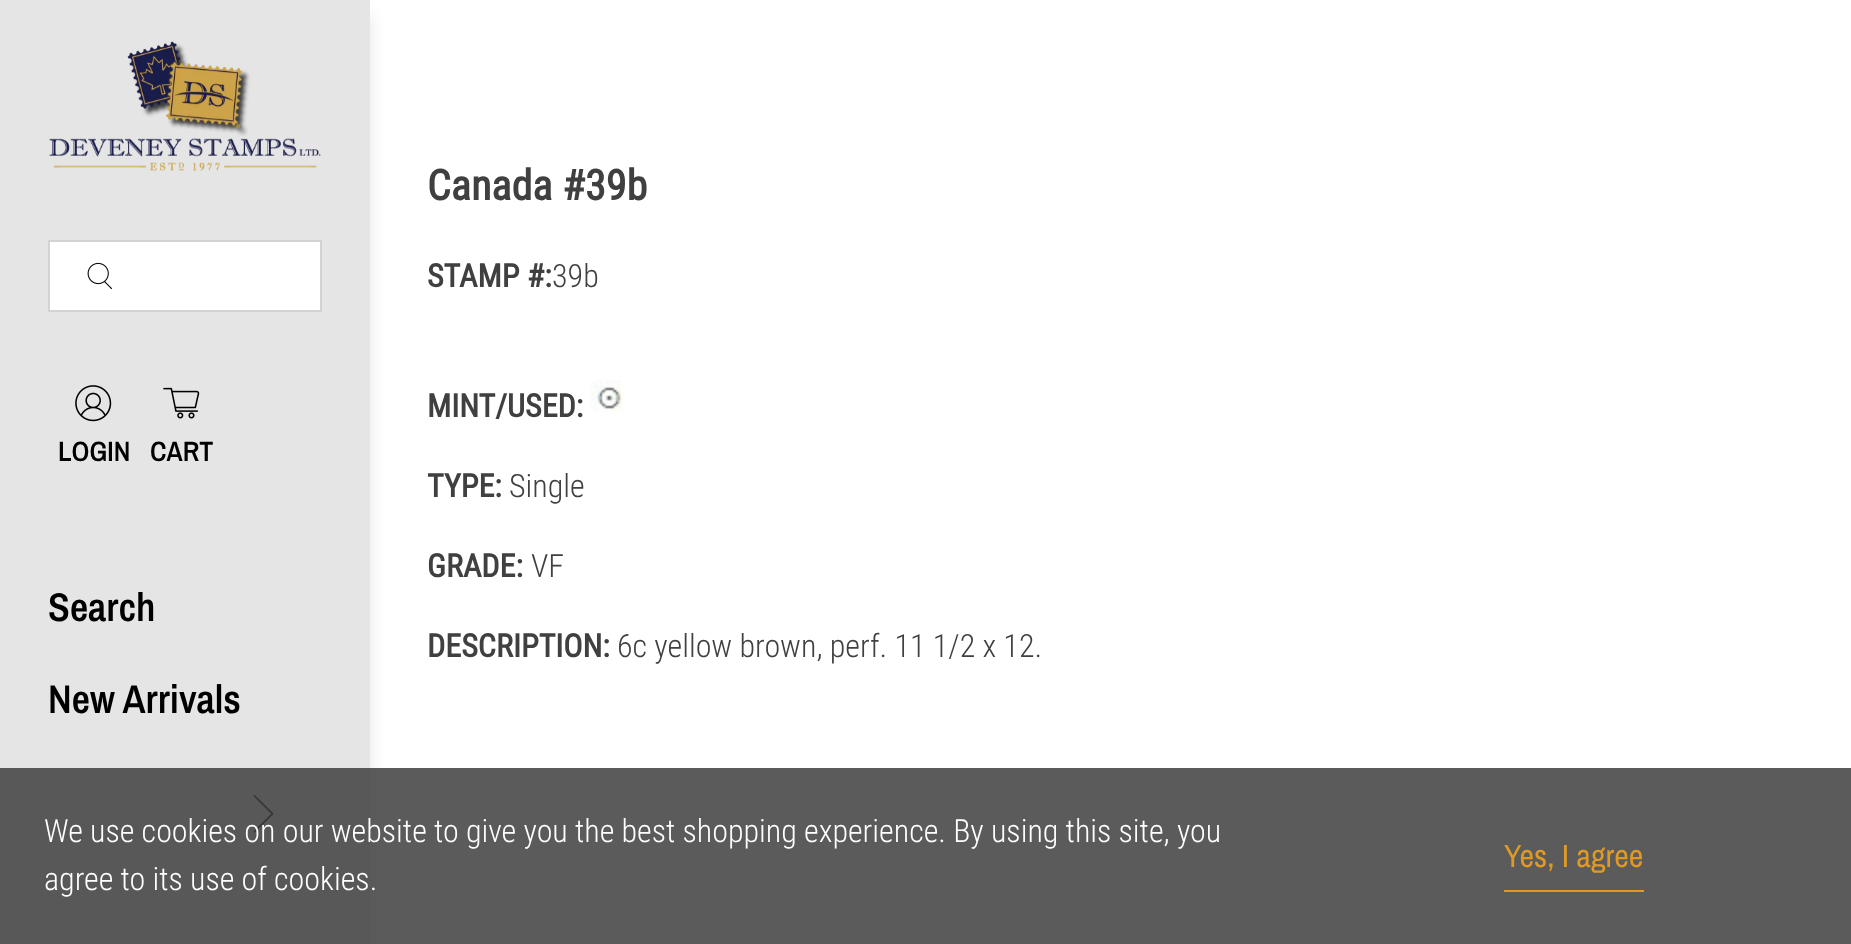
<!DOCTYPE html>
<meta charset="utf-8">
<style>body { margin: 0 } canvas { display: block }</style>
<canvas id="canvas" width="1851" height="944"></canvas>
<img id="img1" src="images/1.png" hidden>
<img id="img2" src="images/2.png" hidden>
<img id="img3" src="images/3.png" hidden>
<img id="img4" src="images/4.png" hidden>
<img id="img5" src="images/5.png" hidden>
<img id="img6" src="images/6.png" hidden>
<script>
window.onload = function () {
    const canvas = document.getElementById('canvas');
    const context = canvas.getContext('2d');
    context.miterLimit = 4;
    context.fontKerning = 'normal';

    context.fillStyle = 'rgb(255, 255, 255)';
    context.fillRect(0, 0, 1851, 944);
    context.fillStyle = 'rgba(10, 10, 10, 0.1)';
    context.filter = 'blur(8px)';
    context.beginPath();
    context.rect(-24, 16, 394, 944);
    context.fill();
    context.filter = 'none';
    context.drawImage(document.getElementById('img1'), 590, 380, 33, 33);
    context.fillStyle = 'rgb(229, 229, 229)';
    context.fillRect(0, 0, 370, 944);
    context.drawImage(document.getElementById('img2'), 49, 41, 272, 130);
    context.fillStyle = 'rgb(255, 255, 255)';
    context.beginPath();
    context.rect(49, 241, 272, 70);
    context.fill();
    context.strokeStyle = 'rgb(211, 211, 211)';
    context.lineWidth = 2;
    context.stroke();
    context.drawImage(document.getElementById('img3'), 87, 262, 25, 28);
    context.drawImage(document.getElementById('img4'), 75, 385, 37, 37);
    context.drawImage(document.getElementById('img5'), 163, 387, 37, 32);
    context.drawImage(document.getElementById('img6'), 253, 795, 21, 38);
    context.fillStyle = 'rgba(64, 64, 64, 0.86)';
    context.fillRect(0, 768, 1851, 176);
    context.fillStyle = 'rgb(223, 154, 38)';
    context.fillRect(1504, 890, 140, 2);
    context.font = 'bold 42px Roboto Condensed';
    context.fillStyle = 'rgb(64, 64, 64)';
    context.fillText('Canada #39b', 427, 200);
    context.font = 'bold 32px Roboto Condensed';
    context.fillText('STAMP #:', 427, 287);
    context.font = '300 32px Roboto Condensed';
    context.fillText('39b', 552, 287);
    context.font = 'bold 32px Roboto Condensed';
    context.fillText('MINT/USED:', 427, 417);
    context.fillText('TYPE:', 427, 497);
    context.font = '300 32px Roboto Condensed';
    context.fillText('Single', 509, 497);
    context.font = 'bold 32px Roboto Condensed';
    context.fillText('GRADE:', 427, 577);
    context.font = '300 32px Roboto Condensed';
    context.fillText('VF', 531, 577);
    context.font = 'bold 32px Roboto Condensed';
    context.fillText('DESCRIPTION:', 427, 657);
    context.font = '300 32px Roboto Condensed';
    context.fillText('6c yellow brown, perf. 11 1/2 x 12.', 617, 657);
    context.font = '600 28px Archivo Narrow';
    context.fillStyle = 'rgb(0, 0, 0)';
    context.fillText('LOGIN', 58, 461);
    context.fillText('CART', 150, 461);
    context.font = '600 40px Archivo Narrow';
    context.fillText('Search', 48, 621);
    context.fillText('New Arrivals', 48, 713);
    context.font = '300 32px Roboto Condensed';
    context.fillStyle = 'rgb(255, 255, 255)';
    context.fillText('We use cookies on our website to give you the best shopping experience. By using this site, you', 44, 842);
    context.fillText('agree to its use of cookies.', 44, 890);
    context.font = '32px Archivo Narrow';
    context.fillStyle = 'rgb(223, 154, 38)';
    context.fillText('Yes, I agree', 1504, 867);
};
</script>
